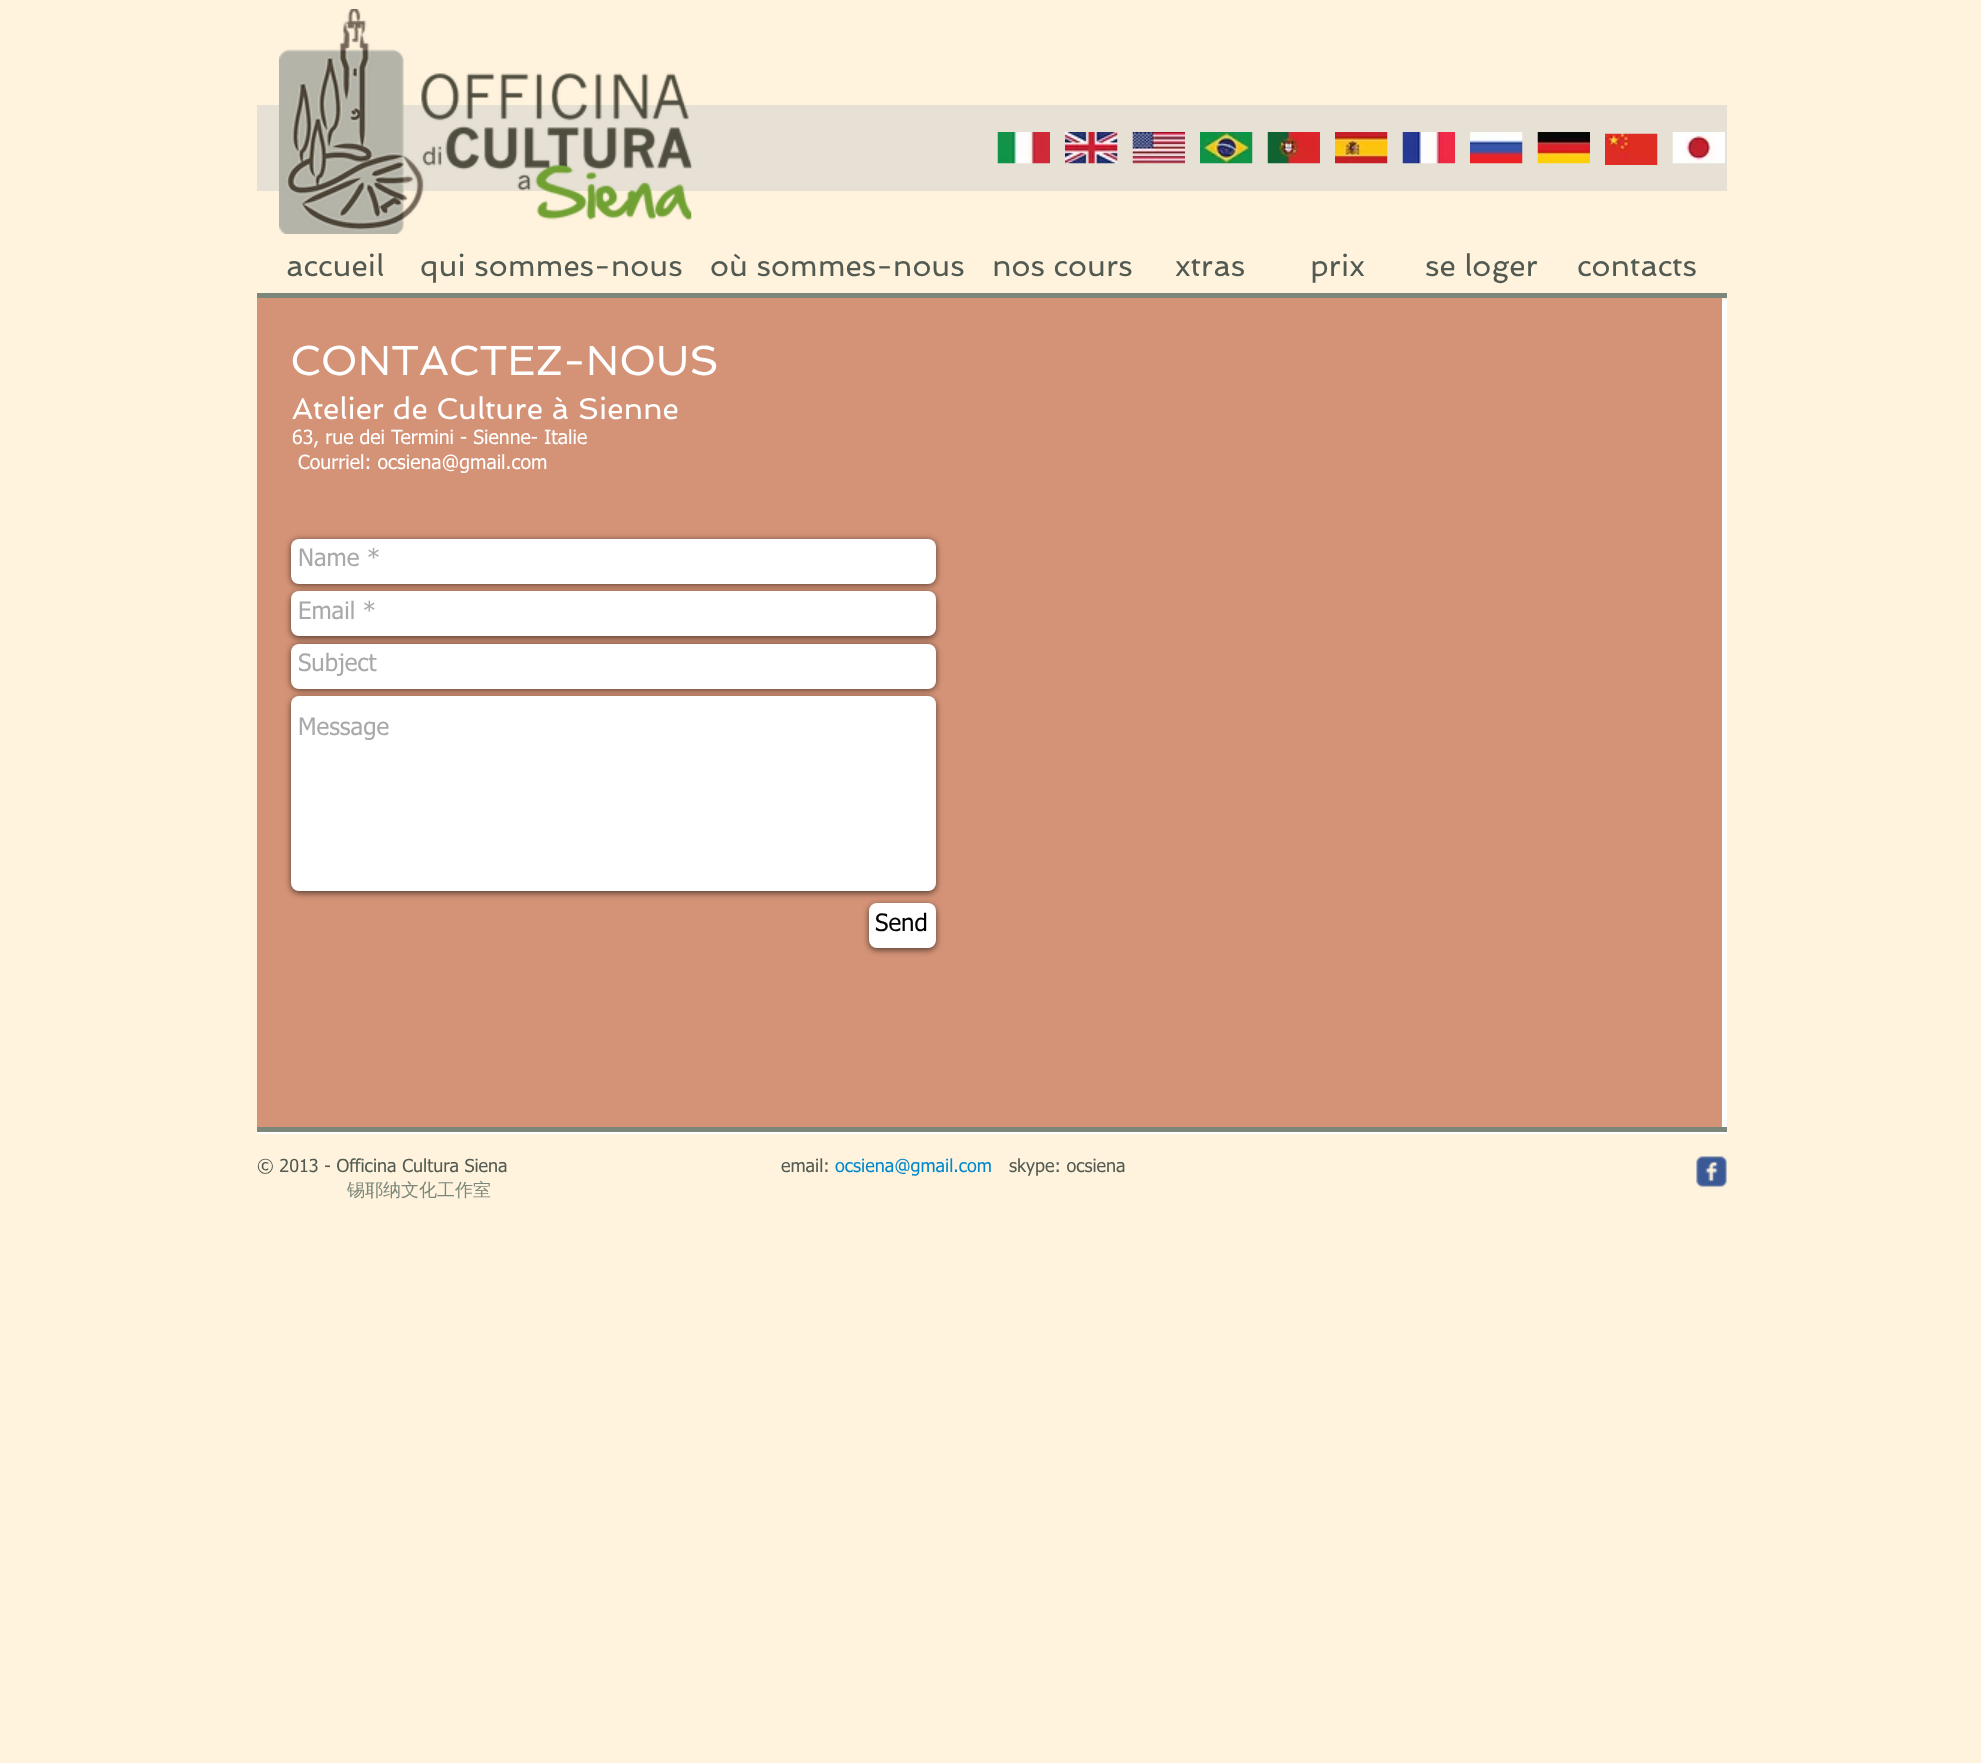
<!DOCTYPE html>
<meta charset="utf-8">
<style>body { margin: 0 } canvas { display: block }</style>
<canvas id="canvas" width="1981" height="1763"></canvas>
<img id="img1" src="images/1.png" hidden>
<img id="img2" src="images/2.png" hidden>
<img id="img3" src="images/3.png" hidden>
<img id="img4" src="images/4.png" hidden>
<img id="img5" src="images/5.png" hidden>
<img id="img6" src="images/6.png" hidden>
<img id="img7" src="images/7.png" hidden>
<img id="img8" src="images/8.png" hidden>
<img id="img9" src="images/9.png" hidden>
<img id="img10" src="images/10.png" hidden>
<img id="img11" src="images/11.png" hidden>
<img id="img12" src="images/12.png" hidden>
<img id="img13" src="images/13.png" hidden>
<script>
window.onload = function () {
    const canvas = document.getElementById('canvas');
    const context = canvas.getContext('2d');
    context.miterLimit = 4;
    context.fontKerning = 'normal';

    context.fillStyle = 'rgb(255, 243, 222)';
    context.fillRect(0, 0, 1981, 1763);
    context.fillStyle = 'rgb(230, 224, 213)';
    context.fillRect(257, 105, 1470, 86);
    context.drawImage(document.getElementById('img1'), 279, 9, 413, 225);
    context.drawImage(document.getElementById('img2'), 1470, 132, 53, 32);
    context.drawImage(document.getElementById('img3'), 1605, 133, 53, 32);
    context.drawImage(document.getElementById('img4'), 997, 132, 53, 32);
    context.drawImage(document.getElementById('img5'), 1065, 132, 53, 32);
    context.drawImage(document.getElementById('img6'), 1132, 132, 53, 32);
    context.drawImage(document.getElementById('img7'), 1200, 132, 53, 32);
    context.drawImage(document.getElementById('img8'), 1267, 132, 53, 32);
    context.drawImage(document.getElementById('img9'), 1335, 132, 53, 32);
    context.drawImage(document.getElementById('img10'), 1402, 132, 53, 32);
    context.drawImage(document.getElementById('img11'), 1537, 132, 53, 32);
    context.drawImage(document.getElementById('img12'), 1672, 132, 53, 32);
    context.fillStyle = 'rgb(255, 255, 255)';
    context.fillRect(257, 300, 1470, 834);
    context.fillStyle = 'rgb(212, 147, 119)';
    context.fillRect(257, 298, 1465, 829);
    context.fillStyle = 'rgba(0, 0, 0, 0.6)';
    context.filter = 'blur(3px)';
    context.beginPath();
    context.roundRect(291, 540, 645, 45, 8);
    context.fill();
    context.filter = 'none';
    context.fillStyle = 'rgb(255, 255, 255)';
    context.beginPath();
    context.roundRect(291, 539, 645, 45, 8);
    context.fill();
    context.fillStyle = 'rgba(0, 0, 0, 0.6)';
    context.filter = 'blur(3px)';
    context.beginPath();
    context.roundRect(291, 593, 645, 45, 8);
    context.fill();
    context.filter = 'none';
    context.fillStyle = 'rgb(255, 255, 255)';
    context.beginPath();
    context.roundRect(291, 591, 645, 45, 8);
    context.fill();
    context.fillStyle = 'rgba(0, 0, 0, 0.6)';
    context.filter = 'blur(3px)';
    context.beginPath();
    context.roundRect(291, 645, 645, 45, 8);
    context.fill();
    context.filter = 'none';
    context.fillStyle = 'rgb(255, 255, 255)';
    context.beginPath();
    context.roundRect(291, 644, 645, 45, 8);
    context.fill();
    context.fillStyle = 'rgba(0, 0, 0, 0.6)';
    context.filter = 'blur(3px)';
    context.beginPath();
    context.roundRect(291, 698, 645, 195, 8);
    context.fill();
    context.filter = 'none';
    context.fillStyle = 'rgb(255, 255, 255)';
    context.beginPath();
    context.roundRect(291, 696, 645, 195, 8);
    context.fill();
    context.fillStyle = 'rgba(0, 0, 0, 0.6)';
    context.filter = 'blur(3px)';
    context.beginPath();
    context.roundRect(869, 905, 67, 45, 8);
    context.fill();
    context.filter = 'none';
    context.fillStyle = 'rgb(255, 255, 255)';
    context.beginPath();
    context.roundRect(869, 903, 67, 45, 8);
    context.fill();
    context.fillStyle = 'rgb(123, 135, 122)';
    context.fillRect(257, 1127, 1470, 5);
    context.fillRect(257, 293, 1470, 5);
    context.drawImage(document.getElementById('img13'), 1696, 1156, 31, 31);
    context.font = '30px Spinnaker';
    context.fillStyle = 'rgb(82, 90, 81)';
    context.fillText('accueil', 286, 276);
    context.fillText('qui sommes-nous', 420, 276);
    context.fillText('où sommes-nous', 710, 276);
    context.fillText('nos cours', 992, 276);
    context.fillText('xtras', 1175, 276);
    context.fillText('prix', 1310, 276);
    context.fillText('se loger', 1425, 276);
    context.fillText('contacts', 1577, 276);
    context.font = '42px Spinnaker';
    context.fillStyle = 'rgb(255, 255, 255)';
    context.fillText('CONTACTEZ-NOUS', 290, 375);
    context.font = '30px Spinnaker';
    context.fillText('Atelier de Culture à Sienne', 292, 419);
    context.font = '19.5px tahoma';
    context.fillText('63, rue dei Termini - Sienne- Italie', 292, 444);
    context.fillText('Courriel: ocsiena@gmail.com', 298, 469);
    context.font = '24px tahoma';
    context.fillStyle = 'rgb(169, 169, 169)';
    context.fillText('Name *', 298, 566);
    context.fillText('Email *', 298, 619);
    context.save();
    context.beginPath();
    context.rect(299, 651, 633, 29);
    context.clip();
    context.fillText('Subject', 298, 671);
    context.restore();
    context.fillText('Message', 298, 735);
    context.fillStyle = 'rgb(0, 0, 0)';
    context.fillText('Send', 875, 931);
    context.font = '18px tahoma';
    context.fillStyle = 'rgb(82, 90, 81)';
    context.fillText('© 2013 - Officina Cultura Siena', 257, 1172);
    context.font = '500 18px WenQuanYi Zen Hei';
    context.fillStyle = 'rgb(123, 135, 122)';
    context.fillText('锡耶纳文化工作室', 347, 1196);
    context.font = '18px tahoma';
    context.fillStyle = 'rgb(82, 90, 81)';
    context.fillText('email:', 781, 1172);
    context.fillStyle = 'rgb(0, 136, 203)';
    context.fillText('ocsiena@gmail.com', 835, 1172);
    context.fillStyle = 'rgb(82, 90, 81)';
    context.fillText('skype: ocsiena', 1009, 1172);
};
</script>
